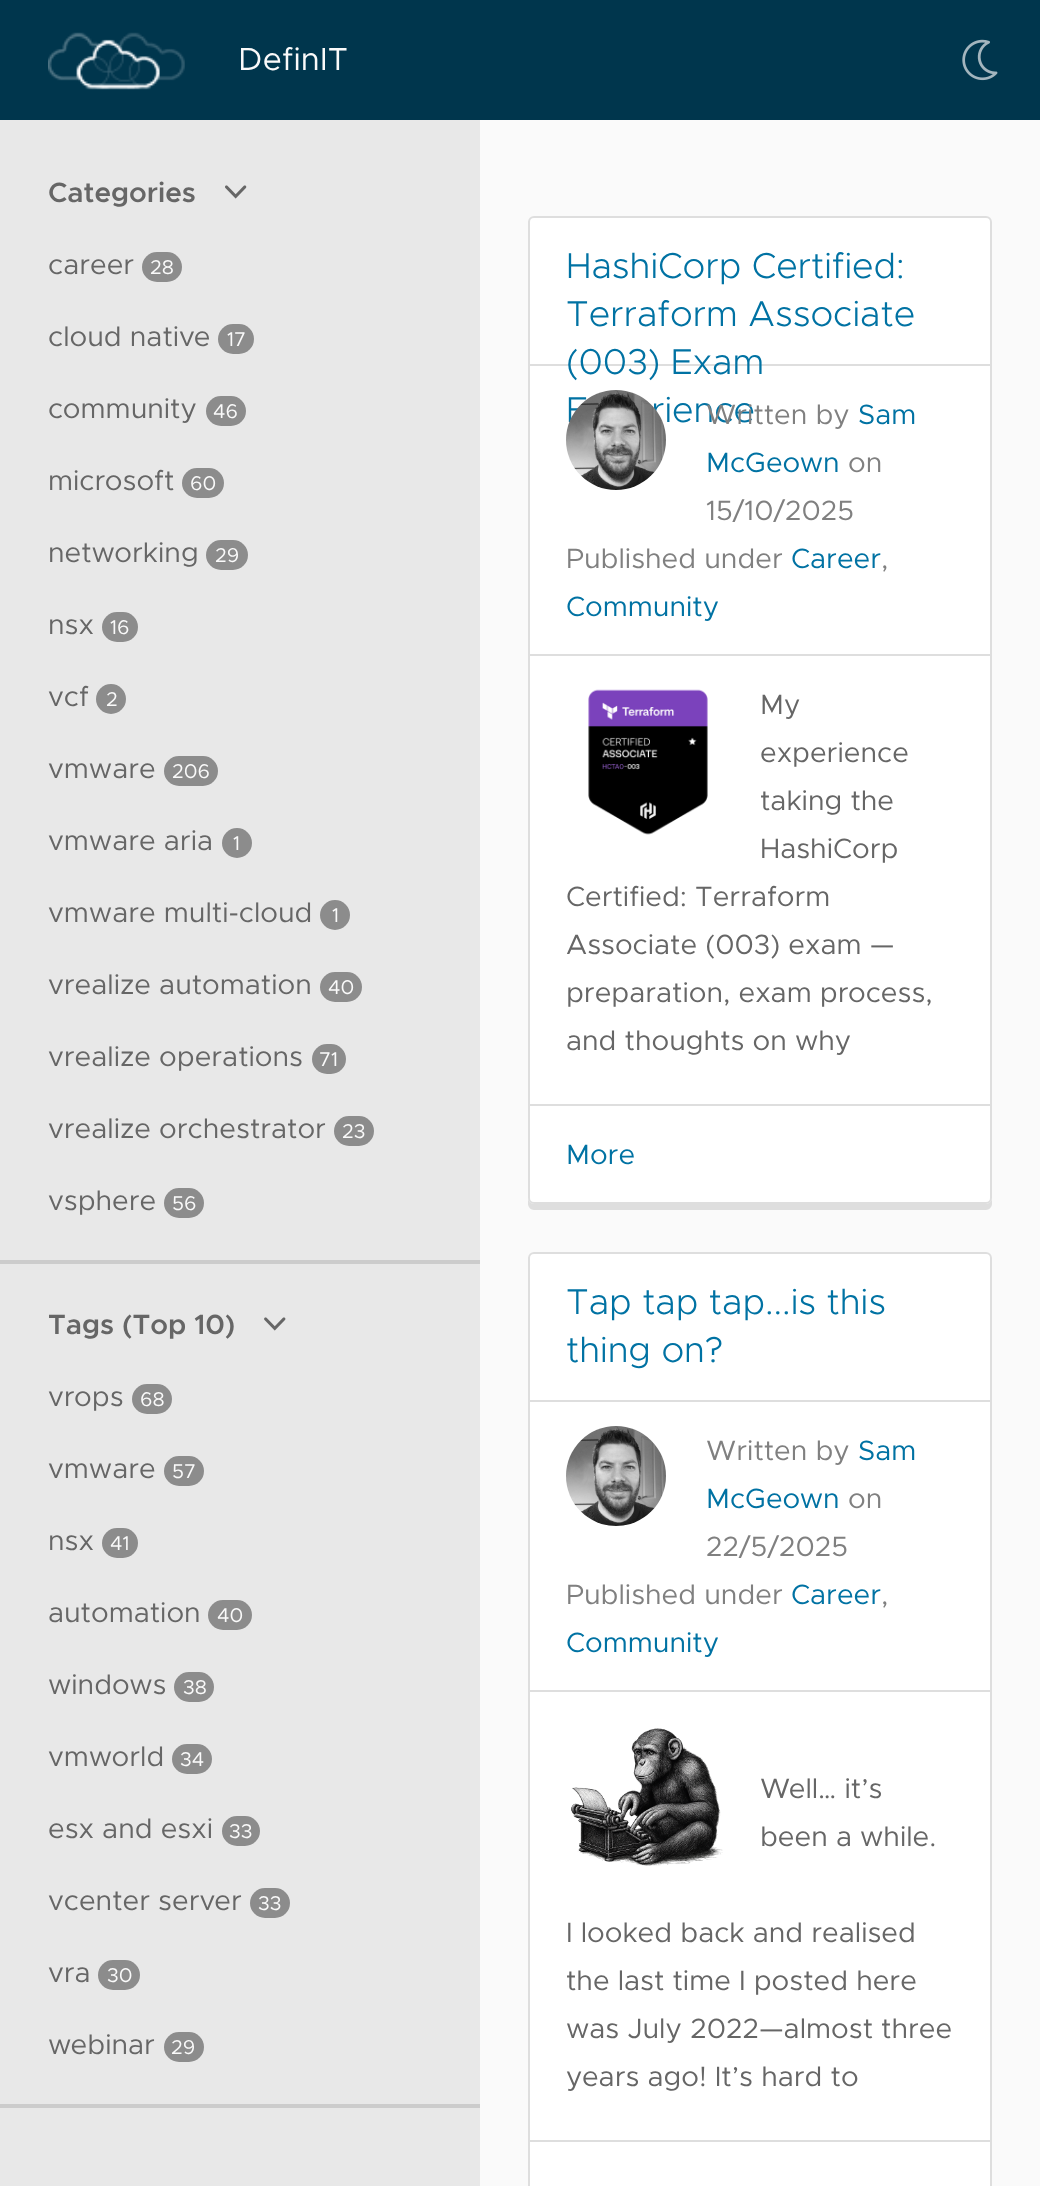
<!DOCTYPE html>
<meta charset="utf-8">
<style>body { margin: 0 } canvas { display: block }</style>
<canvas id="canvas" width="1040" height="2186"></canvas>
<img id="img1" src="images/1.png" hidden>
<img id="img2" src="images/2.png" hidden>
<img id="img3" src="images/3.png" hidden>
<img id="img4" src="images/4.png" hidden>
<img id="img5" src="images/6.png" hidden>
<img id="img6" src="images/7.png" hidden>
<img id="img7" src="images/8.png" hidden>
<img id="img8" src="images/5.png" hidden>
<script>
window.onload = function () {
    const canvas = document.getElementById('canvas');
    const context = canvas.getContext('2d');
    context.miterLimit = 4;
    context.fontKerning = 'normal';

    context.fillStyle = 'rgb(250, 250, 250)';
    context.fillRect(0, 0, 1040, 2186);
    context.fillStyle = 'rgb(0, 54, 77)';
    context.fillRect(0, 0, 1040, 120);
    context.drawImage(document.getElementById('img1'), 48, 32, 137, 58);
    context.drawImage(document.getElementById('img2'), 962, 39, 36, 42);
    context.fillStyle = 'rgb(232, 232, 232)';
    context.fillRect(0, 120, 480, 2066);
    context.drawImage(document.getElementById('img3'), 225, 185, 22, 14);
    context.fillStyle = 'rgb(140, 140, 140)';
    context.beginPath();
    context.roundRect(142, 252, 40, 30, 15);
    context.fill();
    context.beginPath();
    context.roundRect(218, 324, 36, 30, 15);
    context.fill();
    context.beginPath();
    context.roundRect(206, 396, 40, 30, 15);
    context.fill();
    context.beginPath();
    context.roundRect(182, 468, 42, 30, 15);
    context.fill();
    context.beginPath();
    context.roundRect(206, 540, 42, 30, 15);
    context.fill();
    context.beginPath();
    context.roundRect(102, 612, 36, 30, 15);
    context.fill();
    context.beginPath();
    context.arc(111, 699, 15, 0, 2 * Math.PI);
    context.fill();
    context.beginPath();
    context.roundRect(164, 756, 54, 30, 15);
    context.fill();
    context.beginPath();
    context.arc(237, 843, 15, 0, 2 * Math.PI);
    context.fill();
    context.beginPath();
    context.arc(335, 915, 15, 0, 2 * Math.PI);
    context.fill();
    context.beginPath();
    context.roundRect(320, 972, 42, 30, 15);
    context.fill();
    context.beginPath();
    context.roundRect(312, 1044, 34, 30, 15);
    context.fill();
    context.beginPath();
    context.roundRect(334, 1116, 40, 30, 15);
    context.fill();
    context.beginPath();
    context.roundRect(164, 1188, 40, 30, 15);
    context.fill();
    context.fillStyle = 'rgb(204, 204, 204)';
    context.fillRect(0, 1260, 480, 4);
    context.drawImage(document.getElementById('img4'), 264, 1317, 22, 14);
    context.fillStyle = 'rgb(140, 140, 140)';
    context.beginPath();
    context.roundRect(132, 1384, 40, 30, 15);
    context.fill();
    context.beginPath();
    context.roundRect(164, 1456, 40, 30, 15);
    context.fill();
    context.beginPath();
    context.roundRect(102, 1528, 36, 30, 15);
    context.fill();
    context.beginPath();
    context.roundRect(208, 1600, 44, 30, 15);
    context.fill();
    context.beginPath();
    context.roundRect(174, 1672, 40, 30, 15);
    context.fill();
    context.beginPath();
    context.roundRect(172, 1744, 40, 30, 15);
    context.fill();
    context.beginPath();
    context.roundRect(222, 1816, 38, 30, 15);
    context.fill();
    context.beginPath();
    context.roundRect(250, 1888, 40, 30, 15);
    context.fill();
    context.beginPath();
    context.roundRect(98, 1960, 42, 30, 15);
    context.fill();
    context.beginPath();
    context.roundRect(164, 2032, 40, 30, 15);
    context.fill();
    context.fillStyle = 'rgb(204, 204, 204)';
    context.fillRect(0, 2104, 480, 4);
    context.fillStyle = 'rgb(222, 222, 222)';
    context.beginPath();
    context.moveTo(528, 1198);
    context.lineTo(528, 1204);
    context.bezierCurveTo(528, 1207, 531, 1210, 534, 1210);
    context.lineTo(986, 1210);
    context.bezierCurveTo(989, 1210, 992, 1207, 992, 1204);
    context.lineTo(992, 1198);
    context.bezierCurveTo(992, 1201, 989, 1204, 986, 1204);
    context.lineTo(534, 1204);
    context.bezierCurveTo(531, 1204, 528, 1201, 528, 1198);
    context.closePath();
    context.fill();
    context.fillStyle = 'rgb(255, 255, 255)';
    context.beginPath();
    context.roundRect(529, 217, 462, 986, 5);
    context.fill();
    context.strokeStyle = 'rgb(222, 222, 222)';
    context.lineWidth = 2;
    context.stroke();
    context.fillStyle = 'rgb(222, 222, 222)';
    context.fillRect(530, 364, 460, 2);
    context.fillRect(530, 654, 460, 2);
    context.fillRect(530, 1104, 460, 2);
    context.drawImage(document.getElementById('img5'), 588, 689, 120, 146);
    context.fillStyle = 'rgb(255, 255, 255)';
    context.beginPath();
    context.roundRect(528, 1252, 464, 934, [6, 6, 0, 0]);
    context.fill();
    context.beginPath();
    context.roundRect(529, 1253, 462, 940, 5);
    context.stroke();
    context.fillStyle = 'rgb(222, 222, 222)';
    context.fillRect(530, 1400, 460, 2);
    context.fillRect(530, 1690, 460, 2);
    context.drawImage(document.getElementById('img6'), 566, 1426, 100, 100);
    context.fillRect(530, 2140, 460, 2);
    context.drawImage(document.getElementById('img7'), 571, 1728, 152, 138);
    context.letterSpacing = '0.25px';
    context.font = '32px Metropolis';
    context.fillStyle = 'rgb(250, 250, 250)';
    context.fillText('DefinIT', 238, 70);
    context.letterSpacing = '0px';
    context.font = '600 28px Metropolis';
    context.fillStyle = 'rgb(102, 102, 102)';
    context.fillText('Categories', 48, 202);
    context.font = '28px Metropolis';
    context.fillText('career', 48, 274);
    context.font = '20px Metropolis';
    context.fillStyle = 'rgb(250, 250, 250)';
    context.fillText('28', 150, 274);
    context.font = '28px Metropolis';
    context.fillStyle = 'rgb(102, 102, 102)';
    context.fillText('cloud native', 48, 346);
    context.font = '20px Metropolis';
    context.fillStyle = 'rgb(250, 250, 250)';
    context.fillText('17', 227, 346);
    context.font = '28px Metropolis';
    context.fillStyle = 'rgb(102, 102, 102)';
    context.fillText('community', 48, 418);
    context.font = '20px Metropolis';
    context.fillStyle = 'rgb(250, 250, 250)';
    context.fillText('46', 213, 418);
    context.font = '28px Metropolis';
    context.fillStyle = 'rgb(102, 102, 102)';
    context.fillText('microsoft', 48, 490);
    context.font = '20px Metropolis';
    context.fillStyle = 'rgb(250, 250, 250)';
    context.fillText('60', 190, 490);
    context.font = '28px Metropolis';
    context.fillStyle = 'rgb(102, 102, 102)';
    context.fillText('networking', 48, 562);
    context.font = '20px Metropolis';
    context.fillStyle = 'rgb(250, 250, 250)';
    context.fillText('29', 215, 562);
    context.font = '28px Metropolis';
    context.fillStyle = 'rgb(102, 102, 102)';
    context.fillText('nsx', 48, 634);
    context.font = '20px Metropolis';
    context.fillStyle = 'rgb(250, 250, 250)';
    context.fillText('16', 110, 634);
    context.font = '28px Metropolis';
    context.fillStyle = 'rgb(102, 102, 102)';
    context.fillText('vcf', 48, 706);
    context.font = '20px Metropolis';
    context.fillStyle = 'rgb(250, 250, 250)';
    context.fillText('2', 106, 706);
    context.font = '28px Metropolis';
    context.fillStyle = 'rgb(102, 102, 102)';
    context.fillText('vmware', 48, 778);
    context.font = '20px Metropolis';
    context.fillStyle = 'rgb(250, 250, 250)';
    context.fillText('206', 172, 778);
    context.font = '28px Metropolis';
    context.fillStyle = 'rgb(102, 102, 102)';
    context.fillText('vmware aria', 48, 850);
    context.font = '20px Metropolis';
    context.fillStyle = 'rgb(250, 250, 250)';
    context.fillText('1', 233, 850);
    context.font = '28px Metropolis';
    context.fillStyle = 'rgb(102, 102, 102)';
    context.fillText('vmware multi-cloud', 48, 922);
    context.font = '20px Metropolis';
    context.fillStyle = 'rgb(250, 250, 250)';
    context.fillText('1', 332, 922);
    context.font = '28px Metropolis';
    context.fillStyle = 'rgb(102, 102, 102)';
    context.fillText('vrealize automation', 48, 994);
    context.font = '20px Metropolis';
    context.fillStyle = 'rgb(250, 250, 250)';
    context.fillText('40', 328, 994);
    context.font = '28px Metropolis';
    context.fillStyle = 'rgb(102, 102, 102)';
    context.fillText('vrealize operations', 48, 1066);
    context.font = '20px Metropolis';
    context.fillStyle = 'rgb(250, 250, 250)';
    context.fillText('71', 319, 1066);
    context.font = '28px Metropolis';
    context.fillStyle = 'rgb(102, 102, 102)';
    context.fillText('vrealize orchestrator', 48, 1138);
    context.font = '20px Metropolis';
    context.fillStyle = 'rgb(250, 250, 250)';
    context.fillText('23', 342, 1138);
    context.font = '28px Metropolis';
    context.fillStyle = 'rgb(102, 102, 102)';
    context.fillText('vsphere', 48, 1210);
    context.font = '20px Metropolis';
    context.fillStyle = 'rgb(250, 250, 250)';
    context.fillText('56', 172, 1210);
    context.font = '600 28px Metropolis';
    context.fillStyle = 'rgb(102, 102, 102)';
    context.fillText('Tags (Top 10)', 48, 1334);
    context.font = '28px Metropolis';
    context.fillText('vrops', 48, 1406);
    context.font = '20px Metropolis';
    context.fillStyle = 'rgb(250, 250, 250)';
    context.fillText('68', 140, 1406);
    context.font = '28px Metropolis';
    context.fillStyle = 'rgb(102, 102, 102)';
    context.fillText('vmware', 48, 1478);
    context.font = '20px Metropolis';
    context.fillStyle = 'rgb(250, 250, 250)';
    context.fillText('57', 172, 1478);
    context.font = '28px Metropolis';
    context.fillStyle = 'rgb(102, 102, 102)';
    context.fillText('nsx', 48, 1550);
    context.font = '20px Metropolis';
    context.fillStyle = 'rgb(250, 250, 250)';
    context.fillText('41', 110, 1550);
    context.font = '28px Metropolis';
    context.fillStyle = 'rgb(102, 102, 102)';
    context.fillText('automation', 48, 1622);
    context.font = '20px Metropolis';
    context.fillStyle = 'rgb(250, 250, 250)';
    context.fillText('40', 217, 1622);
    context.font = '28px Metropolis';
    context.fillStyle = 'rgb(102, 102, 102)';
    context.fillText('windows', 48, 1694);
    context.font = '20px Metropolis';
    context.fillStyle = 'rgb(250, 250, 250)';
    context.fillText('38', 183, 1694);
    context.font = '28px Metropolis';
    context.fillStyle = 'rgb(102, 102, 102)';
    context.fillText('vmworld', 48, 1766);
    context.font = '20px Metropolis';
    context.fillStyle = 'rgb(250, 250, 250)';
    context.fillText('34', 180, 1766);
    context.font = '28px Metropolis';
    context.fillStyle = 'rgb(102, 102, 102)';
    context.fillText('esx and esxi', 48, 1838);
    context.font = '20px Metropolis';
    context.fillStyle = 'rgb(250, 250, 250)';
    context.fillText('33', 229, 1838);
    context.font = '28px Metropolis';
    context.fillStyle = 'rgb(102, 102, 102)';
    context.fillText('vcenter server', 48, 1910);
    context.font = '20px Metropolis';
    context.fillStyle = 'rgb(250, 250, 250)';
    context.fillText('33', 258, 1910);
    context.font = '28px Metropolis';
    context.fillStyle = 'rgb(102, 102, 102)';
    context.fillText('vra', 48, 1982);
    context.font = '20px Metropolis';
    context.fillStyle = 'rgb(250, 250, 250)';
    context.fillText('30', 107, 1982);
    context.font = '28px Metropolis';
    context.fillStyle = 'rgb(102, 102, 102)';
    context.fillText('webinar', 48, 2054);
    context.font = '20px Metropolis';
    context.fillStyle = 'rgb(250, 250, 250)';
    context.fillText('29', 171, 2054);
    context.font = '300 36px Metropolis';
    context.fillStyle = 'rgb(0, 114, 163)';
    context.fillText('HashiCorp Certified:', 566, 278);
    context.fillText('Terraform Associate', 566, 326);
    context.fillText('(003) Exam', 566, 374);
    context.fillText('E', 566, 422);
    context.fillText('rience', 651, 422);
    context.drawImage(document.getElementById('img8'), 566, 390, 100, 100);
    context.font = '28px Metropolis';
    context.fillStyle = 'rgb(128, 128, 128)';
    context.fillText('Written by', 706, 424);
    context.fillStyle = 'rgb(0, 114, 163)';
    context.fillText('Sam', 858, 424);
    context.fillText('McGeown', 706, 472);
    context.fillStyle = 'rgb(128, 128, 128)';
    context.fillText('on', 848, 472);
    context.fillText('15/10/2025', 706, 520);
    context.fillText('Published under', 566, 568);
    context.fillStyle = 'rgb(0, 114, 163)';
    context.fillText('Career', 791, 568);
    context.fillStyle = 'rgb(128, 128, 128)';
    context.fillText(',', 881, 568);
    context.fillStyle = 'rgb(0, 114, 163)';
    context.fillText('Community', 566, 616);
    context.fillStyle = 'rgb(102, 102, 102)';
    context.fillText('My', 760, 714);
    context.fillText('experience', 760, 762);
    context.fillText('taking the', 760, 810);
    context.fillText('HashiCorp', 760, 858);
    context.fillText('Certified: Terraform', 566, 906);
    context.fillText('Associate (003) exam —', 566, 954);
    context.fillText('preparation, exam process,', 566, 1002);
    context.fillText('and thoughts on why', 566, 1050);
    context.fillStyle = 'rgb(0, 114, 163)';
    context.fillText('More', 566, 1164);
    context.font = '300 36px Metropolis';
    context.fillText('Tap tap tap...is this', 566, 1314);
    context.fillText('thing on?', 566, 1362);
    context.font = '28px Metropolis';
    context.fillStyle = 'rgb(128, 128, 128)';
    context.fillText('Written by', 706, 1460);
    context.fillStyle = 'rgb(0, 114, 163)';
    context.fillText('Sam', 858, 1460);
    context.fillText('McGeown', 706, 1508);
    context.fillStyle = 'rgb(128, 128, 128)';
    context.fillText('on', 848, 1508);
    context.fillText('22/5/2025', 706, 1556);
    context.fillText('Published under', 566, 1604);
    context.fillStyle = 'rgb(0, 114, 163)';
    context.fillText('Career', 791, 1604);
    context.fillStyle = 'rgb(128, 128, 128)';
    context.fillText(',', 881, 1604);
    context.fillStyle = 'rgb(0, 114, 163)';
    context.fillText('Community', 566, 1652);
    context.fillStyle = 'rgb(102, 102, 102)';
    context.fillText('Well… it’s', 760, 1798);
    context.fillText('been a while.', 760, 1846);
    context.fillText('I looked back and realised', 566, 1942);
    context.fillText('the last time I posted here', 566, 1990);
    context.fillText('was July 2022—almost three', 566, 2038);
    context.fillText('years ago! It’s hard to', 566, 2086);
};
</script>
